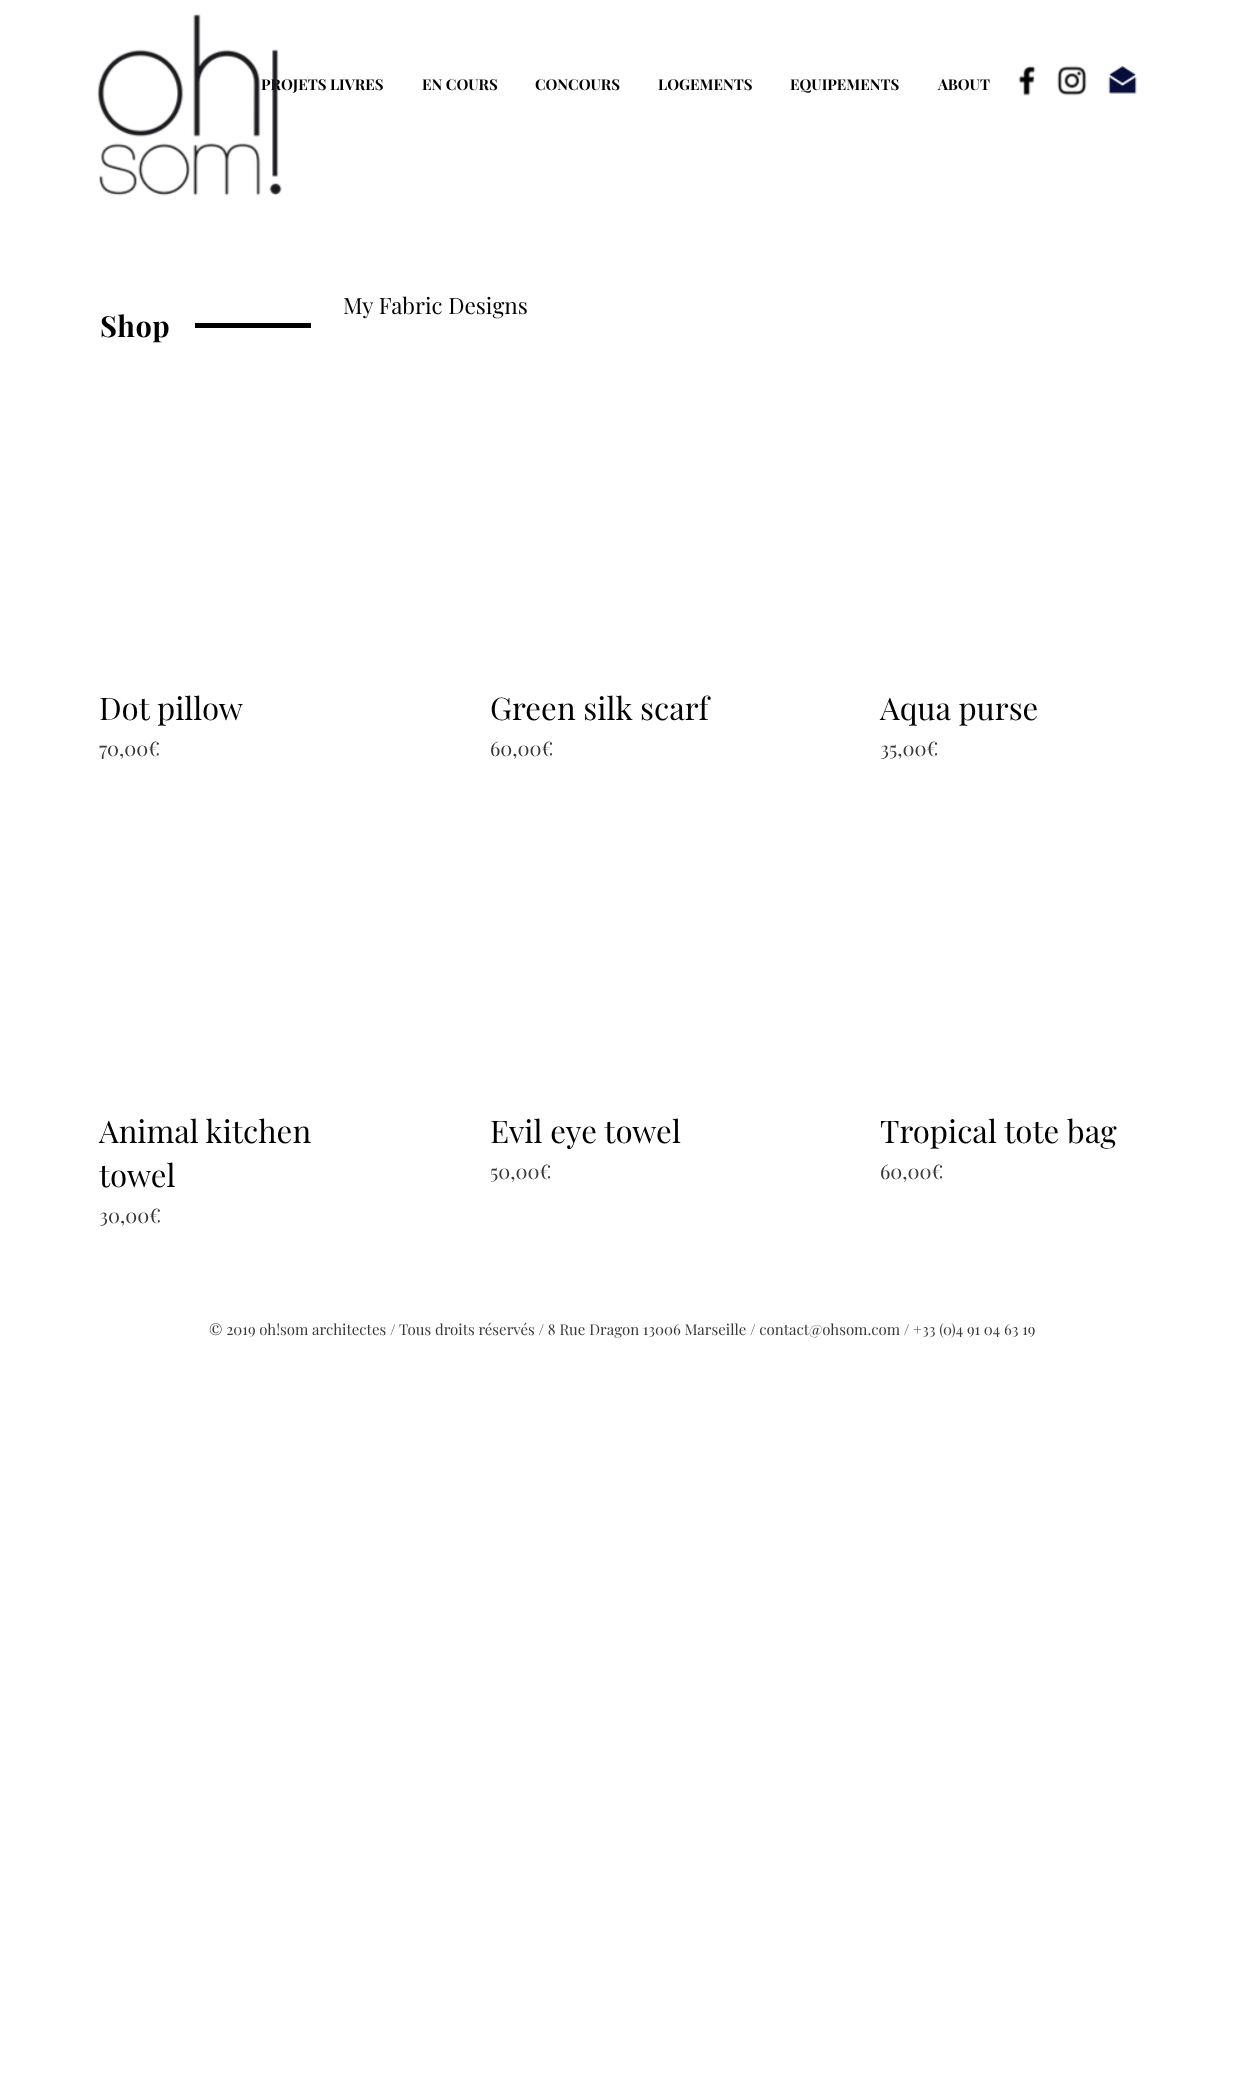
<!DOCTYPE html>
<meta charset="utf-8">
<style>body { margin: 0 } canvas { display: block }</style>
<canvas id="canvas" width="1245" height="2100"></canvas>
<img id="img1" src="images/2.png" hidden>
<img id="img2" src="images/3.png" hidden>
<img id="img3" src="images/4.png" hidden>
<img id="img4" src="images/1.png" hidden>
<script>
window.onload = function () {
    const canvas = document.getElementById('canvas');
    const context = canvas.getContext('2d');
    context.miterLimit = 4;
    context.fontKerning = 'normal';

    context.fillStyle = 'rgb(255, 255, 255)';
    context.fillRect(0, 0, 1245, 2100);
    context.drawImage(document.getElementById('img1'), 1018, 65, 18, 31);
    context.drawImage(document.getElementById('img2'), 1057, 65, 30, 31);
    context.drawImage(document.getElementById('img3'), 1108, 66, 29, 28);
    context.fillStyle = 'rgb(0, 0, 0)';
    context.fillRect(195, 323, 116, 5);
    context.font = 'bold 15px "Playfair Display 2"';
    context.fillText('PROJETS LIVRES', 261, 90);
    context.drawImage(document.getElementById('img4'), 97, 14, 185, 182);
    context.fillText('EN COURS', 422, 90);
    context.fillText('CONCOURS', 535, 90);
    context.fillText('LOGEMENTS', 658, 90);
    context.fillText('EQUIPEMENTS', 790, 90);
    context.fillText('ABOUT', 938, 90);
    context.font = '22.5px Playfair Display';
    context.fillText('My Fabric Designs', 343, 314);
    context.letterSpacing = '0.5px';
    context.font = 'bold 29px Playfair Display';
    context.fillText('Shop', 100, 337);
    context.letterSpacing = '0px';
    context.font = '31.25px Playfair Display';
    context.fillText('Dot pillow', 99, 720);
    context.font = '20px Playfair Display';
    context.fillStyle = 'rgb(56, 56, 56)';
    context.fillText('70,00€', 99, 756);
    context.font = '31.25px Playfair Display';
    context.fillStyle = 'rgb(0, 0, 0)';
    context.fillText('Green silk scarf', 490, 720);
    context.font = '20px Playfair Display';
    context.fillStyle = 'rgb(56, 56, 56)';
    context.fillText('60,00€', 490, 756);
    context.font = '31.25px Playfair Display';
    context.fillStyle = 'rgb(0, 0, 0)';
    context.fillText('Aqua purse', 880, 720);
    context.font = '20px Playfair Display';
    context.fillStyle = 'rgb(56, 56, 56)';
    context.fillText('35,00€', 880, 756);
    context.font = '31.25px Playfair Display';
    context.fillStyle = 'rgb(0, 0, 0)';
    context.fillText('Animal kitchen', 99, 1143);
    context.fillText('towel', 99, 1187);
    context.font = '20px Playfair Display';
    context.fillStyle = 'rgb(56, 56, 56)';
    context.fillText('30,00€', 99, 1223);
    context.font = '31.25px Playfair Display';
    context.fillStyle = 'rgb(0, 0, 0)';
    context.fillText('Evil eye towel', 490, 1143);
    context.font = '20px Playfair Display';
    context.fillStyle = 'rgb(56, 56, 56)';
    context.fillText('50,00€', 490, 1179);
    context.font = '31.25px Playfair Display';
    context.fillStyle = 'rgb(0, 0, 0)';
    context.fillText('Tropical tote bag', 880, 1143);
    context.font = '20px Playfair Display';
    context.fillStyle = 'rgb(56, 56, 56)';
    context.fillText('60,00€', 880, 1179);
    context.font = '15px Playfair Display';
    context.fillText('© 2019 oh!som architectes / Tous droits réservés / 8 Rue Dragon 13006 Marseille / contact@ohsom.com / +33 (0)4 91 04 63 19', 209, 1335);
};
</script>
